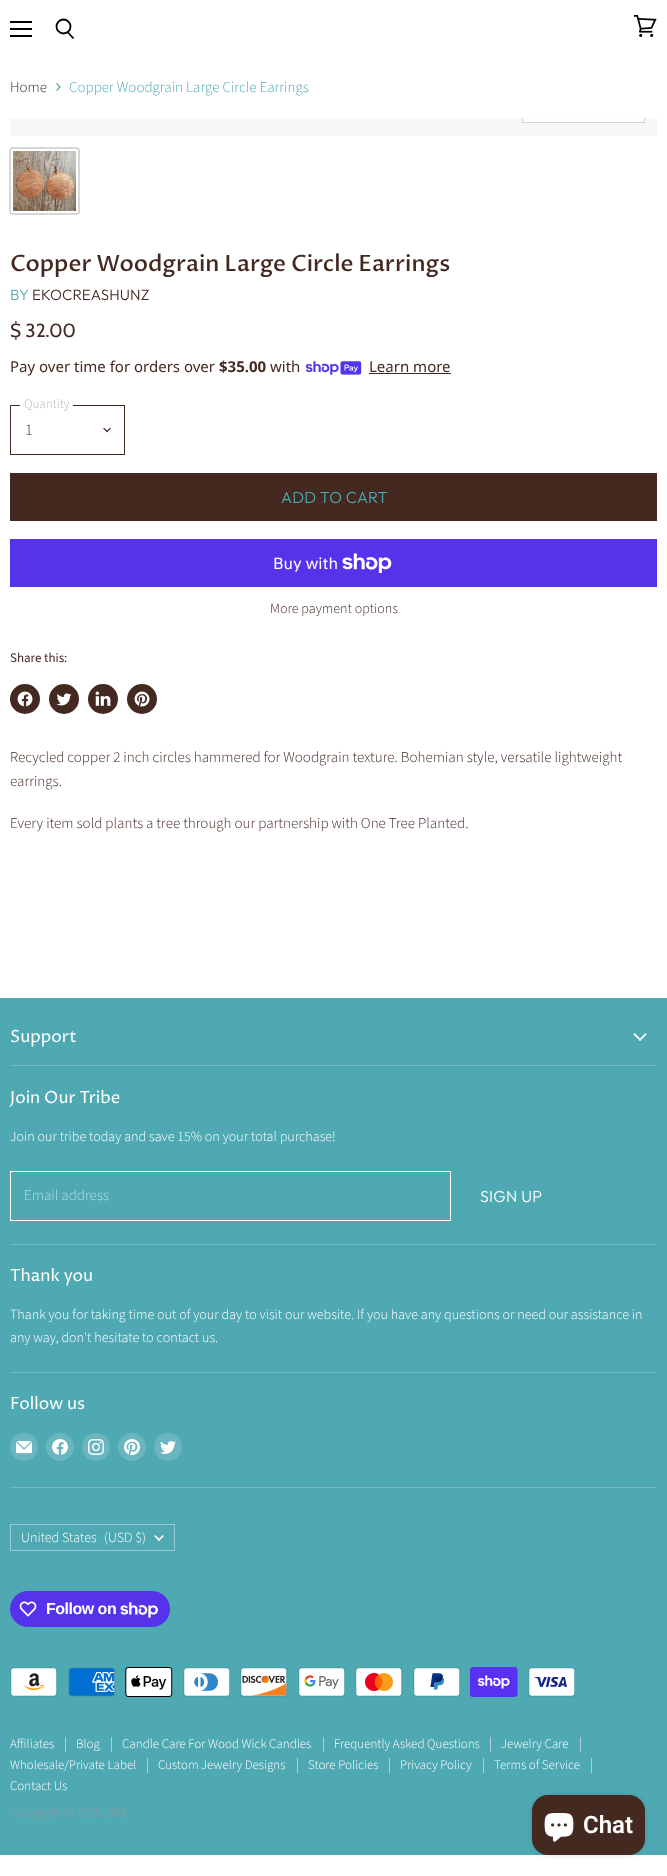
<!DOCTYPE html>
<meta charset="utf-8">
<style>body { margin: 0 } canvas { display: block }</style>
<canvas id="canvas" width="667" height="1876"></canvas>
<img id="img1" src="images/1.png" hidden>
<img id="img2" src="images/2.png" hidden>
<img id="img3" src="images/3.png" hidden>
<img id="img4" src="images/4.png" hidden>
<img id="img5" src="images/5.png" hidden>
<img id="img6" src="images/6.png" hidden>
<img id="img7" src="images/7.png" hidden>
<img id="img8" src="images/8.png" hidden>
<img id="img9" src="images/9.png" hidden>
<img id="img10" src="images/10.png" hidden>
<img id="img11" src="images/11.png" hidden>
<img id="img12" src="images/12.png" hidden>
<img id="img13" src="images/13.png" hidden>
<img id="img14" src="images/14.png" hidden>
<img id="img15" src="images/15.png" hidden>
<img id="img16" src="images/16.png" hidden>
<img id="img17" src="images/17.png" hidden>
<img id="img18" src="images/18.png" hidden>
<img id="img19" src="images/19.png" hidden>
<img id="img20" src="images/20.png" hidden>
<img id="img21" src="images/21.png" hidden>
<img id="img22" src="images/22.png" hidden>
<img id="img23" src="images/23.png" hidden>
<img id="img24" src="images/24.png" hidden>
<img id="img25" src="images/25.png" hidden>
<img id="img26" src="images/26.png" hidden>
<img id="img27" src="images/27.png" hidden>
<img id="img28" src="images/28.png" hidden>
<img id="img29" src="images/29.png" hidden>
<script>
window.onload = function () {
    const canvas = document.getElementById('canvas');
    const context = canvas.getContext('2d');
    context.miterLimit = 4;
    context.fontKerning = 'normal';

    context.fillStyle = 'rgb(255, 255, 255)';
    context.fillRect(0, 0, 667, 1876);
    context.fillStyle = 'rgb(0, 0, 0)';
    context.fillRect(10, 21, 22, 2);
    context.fillRect(10, 28, 22, 2);
    context.fillRect(10, 35, 22, 2);
    context.beginPath();
    context.moveTo(73.5, 38.5);
    context.lineTo(67.5, 32);
    context.strokeStyle = 'rgb(0, 0, 0)';
    context.lineWidth = 1.8;
    context.stroke();
    context.beginPath();
    context.arc(63.5, 26.5, 7, 0, 2 * Math.PI);
    context.stroke();
    context.drawImage(document.getElementById('img1'), 633, 15, 24, 22);
    context.beginPath();
    context.moveTo(56.5, 90.5);
    context.lineTo(60, 87);
    context.lineTo(56.5, 83.5);
    context.strokeStyle = 'rgb(79, 169, 179)';
    context.lineWidth = 1.2;
    context.stroke();
    context.fillStyle = 'rgb(248, 246, 246)';
    context.fillRect(10, 118, 647, 18);
    context.save();
    context.beginPath();
    context.rect(10, 118, 647, 18);
    context.clip();
    context.strokeStyle = 'rgb(211, 209, 209)';
    context.lineWidth = 1;
    context.strokeRect(522.5, 94.5, 122, 28);
    context.restore();
    context.fillStyle = 'rgb(254, 254, 254)';
    context.fillRect(523, 118, 121, 4);
    context.beginPath();
    context.roundRect(10, 148, 69, 66, 3);
    context.strokeStyle = 'rgb(215, 215, 215)';
    context.lineWidth = 2;
    context.stroke();
    context.drawImage(document.getElementById('img2'), 13, 151, 63, 60);
    context.drawImage(document.getElementById('img3'), 305, 361, 57, 14);
    context.fillStyle = 'rgb(68, 41, 33)';
    context.fillRect(369, 373, 82, 1);
    context.strokeStyle = 'rgb(68, 41, 33)';
    context.lineWidth = 1;
    context.strokeRect(10.5, 405.5, 114, 49);
    context.fillStyle = 'rgb(255, 255, 255)';
    context.fillRect(20, 405, 53, 1);
    context.drawImage(document.getElementById('img4'), 103, 427, 8, 6);
    context.fillStyle = 'rgb(68, 41, 33)';
    context.fillRect(10, 473, 647, 48);
    context.fillStyle = 'rgb(84, 51, 235)';
    context.fillRect(10, 539, 647, 48);
    context.drawImage(document.getElementById('img5'), 342, 553, 50, 20);
    context.fillStyle = 'rgb(68, 41, 33)';
    context.beginPath();
    context.arc(25, 699, 15, 0, 2 * Math.PI);
    context.fill();
    context.drawImage(document.getElementById('img6'), 17, 691, 16, 16);
    context.beginPath();
    context.arc(64, 699, 15, 0, 2 * Math.PI);
    context.fill();
    context.drawImage(document.getElementById('img7'), 56, 693, 16, 13);
    context.beginPath();
    context.arc(103, 699, 15, 0, 2 * Math.PI);
    context.fill();
    context.drawImage(document.getElementById('img8'), 95, 691, 16, 15);
    context.beginPath();
    context.arc(142, 699, 15, 0, 2 * Math.PI);
    context.fill();
    context.drawImage(document.getElementById('img9'), 134, 691, 16, 16);
    context.fillStyle = 'rgb(79, 169, 179)';
    context.fillRect(0, 998, 667, 857);
    context.fillStyle = 'rgb(114, 186, 194)';
    context.fillRect(10, 1065, 647, 1);
    context.drawImage(document.getElementById('img10'), 633, 1033, 14, 8);
    context.fillRect(10, 1244, 647, 1);
    context.strokeStyle = 'rgb(255, 255, 255)';
    context.strokeRect(10.5, 1171.5, 440, 49);
    context.fillRect(10, 1372, 647, 1);
    context.fillRect(10, 1487, 647, 1);
    context.fillStyle = 'rgb(105, 182, 190)';
    context.beginPath();
    context.arc(24, 1447, 14, 0, 2 * Math.PI);
    context.fill();
    context.drawImage(document.getElementById('img11'), 16, 1441, 16, 13);
    context.beginPath();
    context.arc(60, 1447, 14, 0, 2 * Math.PI);
    context.fill();
    context.drawImage(document.getElementById('img12'), 52, 1439, 16, 16);
    context.beginPath();
    context.arc(96, 1447, 14, 0, 2 * Math.PI);
    context.fill();
    context.drawImage(document.getElementById('img13'), 88, 1439, 16, 16);
    context.beginPath();
    context.arc(132, 1447, 14, 0, 2 * Math.PI);
    context.fill();
    context.drawImage(document.getElementById('img14'), 124, 1439, 16, 16);
    context.beginPath();
    context.arc(168, 1447, 14, 0, 2 * Math.PI);
    context.fill();
    context.drawImage(document.getElementById('img15'), 160, 1441, 16, 13);
    context.strokeStyle = 'rgb(149, 203, 209)';
    context.strokeRect(10.5, 1524.5, 164, 26);
    context.drawImage(document.getElementById('img16'), 154, 1535, 10, 6);
    context.fillStyle = 'rgb(84, 51, 235)';
    context.beginPath();
    context.roundRect(10, 1591, 160, 36, 18);
    context.fill();
    context.drawImage(document.getElementById('img17'), 19, 1601, 18, 16);
    context.drawImage(document.getElementById('img18'), 120, 1602, 38, 16);
    context.drawImage(document.getElementById('img19'), 10, 1667, 48, 30);
    context.drawImage(document.getElementById('img20'), 68, 1667, 47, 30);
    context.drawImage(document.getElementById('img21'), 125, 1667, 48, 30);
    context.drawImage(document.getElementById('img22'), 183, 1667, 47, 30);
    context.drawImage(document.getElementById('img23'), 240, 1667, 48, 30);
    context.drawImage(document.getElementById('img24'), 298, 1667, 47, 30);
    context.drawImage(document.getElementById('img25'), 355, 1667, 48, 30);
    context.drawImage(document.getElementById('img26'), 413, 1667, 47, 30);
    context.drawImage(document.getElementById('img27'), 470, 1667, 48, 30);
    context.drawImage(document.getElementById('img28'), 528, 1667, 47, 30);
    context.fillStyle = 'rgb(167, 212, 217)';
    context.fillRect(65, 1737, 1, 15);
    context.fillRect(111, 1737, 1, 15);
    context.fillRect(323, 1737, 1, 15);
    context.fillRect(490, 1737, 1, 15);
    context.fillRect(580, 1737, 1, 15);
    context.fillRect(147, 1758, 1, 15);
    context.fillRect(297, 1758, 1, 15);
    context.fillRect(389, 1758, 1, 15);
    context.fillRect(483, 1758, 1, 15);
    context.fillRect(591, 1758, 1, 15);
    context.fillStyle = 'rgba(0, 0, 0, 0.15)';
    context.filter = 'blur(2.5px)';
    context.beginPath();
    context.roundRect(532, 1795, 113, 60, 16);
    context.fill();
    context.filter = 'none';
    context.fillStyle = 'rgb(68, 41, 33)';
    context.beginPath();
    context.roundRect(532, 1795, 113, 60, 16);
    context.fill();
    context.drawImage(document.getElementById('img29'), 544, 1813, 30, 29);
    context.font = '300 15px Source Sans Pro';
    context.fillText('Home', 10, 92);
    context.fillStyle = 'rgb(79, 169, 179)';
    context.fillText('Copper Woodgrain Large Circle Earrings', 69, 92);
    context.font = '500 22.5px Proza Libre';
    context.fillStyle = 'rgb(68, 41, 33)';
    context.fillText('Copper Woodgrain Large Circle Earrings', 10, 271);
    context.letterSpacing = '0.1px';
    context.font = '300 15px Outfit';
    context.fillStyle = 'rgb(79, 169, 179)';
    context.fillText('BY', 10, 300);
    context.fillStyle = 'rgb(68, 41, 33)';
    context.fillText('EKOCREASHUNZ', 32, 300);
    context.letterSpacing = '0px';
    context.font = '19px Cabin';
    context.fillText('$ 32.00', 10, 337);
    context.font = '15px Noto Sans';
    context.fillText('Pay over time for orders over', 10, 372);
    context.font = 'bold 15px Noto Sans';
    context.fillText('$35.00', 219, 372);
    context.font = '15px Noto Sans';
    context.fillText('with', 270, 372);
    context.fillText('Learn more', 369, 372);
    context.font = '300 13px Source Sans Pro';
    context.fillStyle = 'rgb(180, 180, 180)';
    context.fillText('Quantity', 24, 408);
    context.font = '300 16px Source Sans Pro';
    context.fillStyle = 'rgb(68, 41, 33)';
    context.fillText('1', 25, 435);
    context.letterSpacing = '0.25px';
    context.font = '300 16px Outfit';
    context.fillStyle = 'rgb(79, 169, 179)';
    context.fillText('ADD TO CART', 281, 503);
    context.letterSpacing = '0px';
    context.font = '16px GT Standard';
    context.fillStyle = 'rgb(255, 255, 255)';
    context.fillText('Buy with', 273, 569);
    context.font = '300 14.05px Source Sans Pro';
    context.fillStyle = 'rgb(68, 41, 33)';
    context.fillText('More payment options', 270, 613);
    context.font = '13px Source Sans Pro';
    context.fillText('Share this:', 10, 662);
    context.font = '300 15px Source Sans Pro';
    context.fillText('Recycled copper 2 inch circles hammered for Woodgrain texture. Bohemian style, versatile lightweight', 10, 762);
    context.fillText('earrings.', 10, 786);
    context.fillText('Every item sold plants a tree through our partnership with One Tree Planted.', 10, 828);
    context.font = '16.75px Proza Libre';
    context.fillStyle = 'rgb(255, 255, 255)';
    context.fillText('Support', 10, 1042);
    context.fillText('Join Our Tribe', 10, 1103);
    context.font = '300 14.05px Source Sans Pro';
    context.fillText('Join our tribe today and save 15% on your total purchase!', 10, 1141);
    context.font = '300 15px Source Sans Pro';
    context.fillStyle = 'rgb(185, 221, 225)';
    context.fillText('Email address', 24, 1200);
    context.letterSpacing = '0.25px';
    context.font = '300 16px Outfit';
    context.fillStyle = 'rgb(255, 255, 255)';
    context.fillText('SIGN UP', 480, 1202);
    context.letterSpacing = '0px';
    context.font = '16.75px Proza Libre';
    context.fillText('Thank you', 10, 1281);
    context.font = '300 14.05px Source Sans Pro';
    context.fillText('Thank you for taking time out of your day to visit our website. If you have any questions or need our assistance in', 10, 1319);
    context.fillText('any way, don\'t hesitate to contact us.', 10, 1342);
    context.font = '16.75px Proza Libre';
    context.fillText('Follow us', 10, 1409);
    context.font = '300 14.05px Source Sans Pro';
    context.fillText('United States', 21, 1542);
    context.fillText('(USD $)', 104, 1542);
    context.letterSpacing = '-0.5px';
    context.font = 'bold 16px Liberation Sans';
    context.fillText('Follow on', 46, 1614);
    context.letterSpacing = '0px';
    context.font = '300 13px Source Sans Pro';
    context.fillText('Affiliates', 10, 1748);
    context.fillText('Blog', 76, 1748);
    context.fillText('Candle Care For Wood Wick Candles', 122, 1748);
    context.fillText('Frequently Asked Questions', 334, 1748);
    context.fillText('Jewelry Care', 501, 1748);
    context.fillText('Wholesale/Private Label', 10, 1769);
    context.fillText('Custom Jewelry Designs', 158, 1769);
    context.fillText('Store Policies', 308, 1769);
    context.fillText('Privacy Policy', 400, 1769);
    context.fillText('Terms of Service', 494, 1769);
    context.fillText('Contact Us', 10, 1790);
    context.fillStyle = 'rgb(153, 153, 153)';
    context.fillText('Copyright © 2025 EKO.', 10, 1817);
    context.font = '600 24px Roboto';
    context.fillStyle = 'rgb(255, 255, 255)';
    context.fillText('Chat', 583, 1833);
};
</script>
